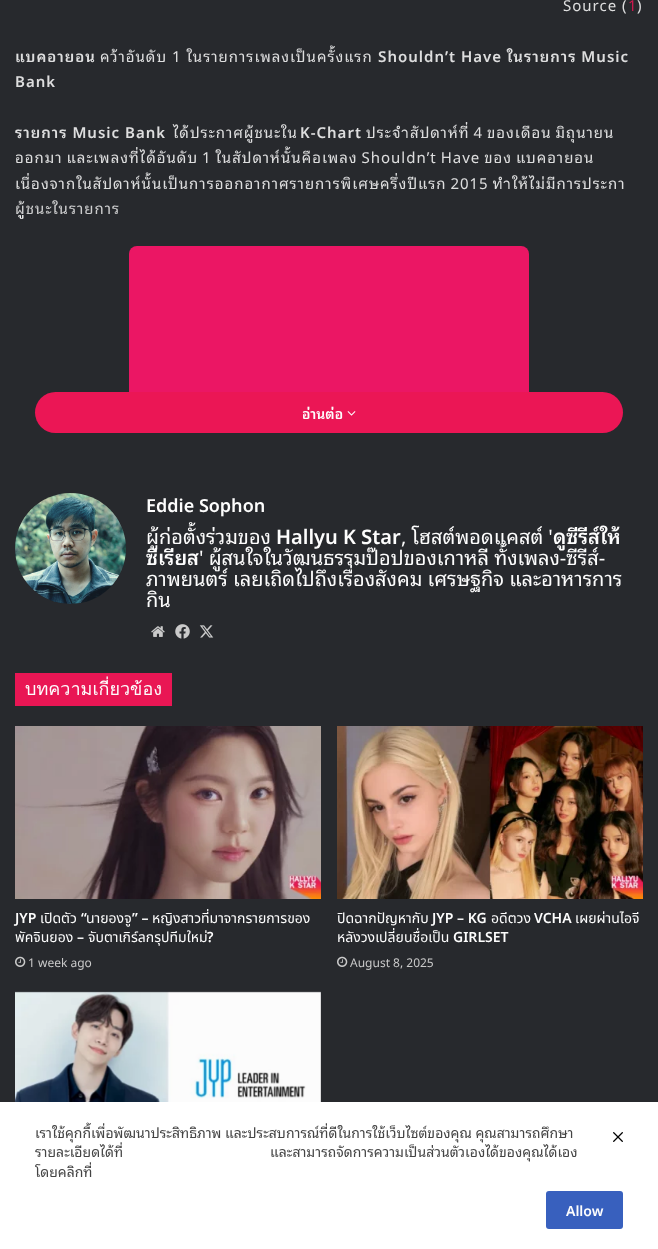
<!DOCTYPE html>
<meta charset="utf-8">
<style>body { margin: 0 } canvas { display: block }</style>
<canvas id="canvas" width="658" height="1249"></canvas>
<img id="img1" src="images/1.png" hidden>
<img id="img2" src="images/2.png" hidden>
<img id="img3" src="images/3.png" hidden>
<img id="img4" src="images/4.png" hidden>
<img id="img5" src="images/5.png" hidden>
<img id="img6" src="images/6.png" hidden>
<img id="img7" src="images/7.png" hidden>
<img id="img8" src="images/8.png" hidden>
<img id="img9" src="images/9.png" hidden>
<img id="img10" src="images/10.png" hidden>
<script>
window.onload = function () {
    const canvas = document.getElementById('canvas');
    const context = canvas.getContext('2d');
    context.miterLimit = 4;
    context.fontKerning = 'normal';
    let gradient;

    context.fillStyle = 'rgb(39, 41, 45)';
    context.fillRect(0, 0, 658, 1249);
    context.fillStyle = 'rgb(235, 22, 100)';
    context.beginPath();
    context.roundRect(129, 246, 400, 146, [8, 8, 0, 0]);
    context.fill();
    context.fillStyle = 'rgb(235, 22, 85)';
    context.beginPath();
    context.roundRect(35, 392, 588, 41, 20.5);
    context.fill();
    context.drawImage(document.getElementById('img1'), 347, 411, 9, 5);
    context.drawImage(document.getElementById('img2'), 15, 493, 111, 111);
    context.drawImage(document.getElementById('img3'), 151, 626, 14, 11);
    context.drawImage(document.getElementById('img4'), 175, 624, 15, 15);
    context.drawImage(document.getElementById('img5'), 199, 625, 15, 13);
    context.fillStyle = 'rgb(233, 22, 84)';
    context.fillRect(15, 673, 157, 33);
    context.drawImage(document.getElementById('img6'), 15, 726, 306, 173);
    context.drawImage(document.getElementById('img7'), 15, 956, 11, 11);
    context.drawImage(document.getElementById('img8'), 337, 726, 306, 173);
    context.drawImage(document.getElementById('img7'), 337, 956, 11, 11);
    context.drawImage(document.getElementById('img9'), 15, 991, 306, 111);
    context.fillStyle = 'rgb(255, 255, 255)';
    context.fillRect(0, 1102, 658, 147);
    context.drawImage(document.getElementById('img10'), 613, 1132, 10, 10);
    context.fillStyle = 'rgb(56, 96, 190)';
    context.beginPath();
    context.roundRect(546, 1191, 77, 38, 3);
    context.fill();
    context.letterSpacing = '1px';
    context.font = '15px Noto Sans Thai Looped';
    context.fillStyle = 'rgb(253, 253, 253)';
    context.fillText('Source (', 563, 11);
    context.fillStyle = 'rgb(235, 22, 85)';
    context.fillText('1', 628, 11);
    context.fillStyle = 'rgb(253, 253, 253)';
    context.fillText(')', 637, 11);
    context.font = '600 15px Noto Sans Thai Looped';
    context.fillText('แบคอายอน', 15, 62);
    context.font = '15px Noto Sans Thai Looped';
    context.fillText('คว้าอันดับ 1 ในรายการเพลงเป็นครั้งแรก', 100, 62);
    context.font = '600 15px Noto Sans Thai Looped';
    context.fillText('Shouldn’t Have ในรายการ Music', 378, 62);
    context.fillText('Bank', 15, 87);
    context.fillText('รายการ Music Bank', 15, 138);
    context.font = '15px Noto Sans Thai Looped';
    context.fillText('ได้ประกาศผู้ชนะใน', 173, 138);
    context.font = '600 15px Noto Sans Thai Looped';
    context.fillText('K-Chart', 300, 138);
    context.wordSpacing = '-1px';
    context.font = '15px Noto Sans Thai Looped';
    context.fillText('ประจำสัปดาห์ที่ 4 ของเดือน มิถุนายน', 366, 138);
    context.fillText('ออกมา และเพลงที่ได้อันดับ 1 ในสัปดาห์นั้นคือเพลง Shouldn’t Have ของ แบคอายอน', 15, 163);
    context.save();
    context.beginPath();
    context.rect(15, 0, 628, 392);
    context.clip();
    context.fillText('เนื่องจากในสัปดาห์นั้นเป็นการออกอากาศรายการพิเศษครึ่งปีแรก 2015 ทำให้ไม่มีการประกา', 15, 189);
    context.wordSpacing = '0px';
    context.fillText('ผู้ชนะในรายการ', 15, 214);
    context.restore();
    gradient = context.createLinearGradient(329, -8, 329, 392);
    gradient.addColorStop(0.5, 'rgba(39, 41, 45, 0.15)');
    gradient.addColorStop(1, 'rgb(39, 41, 45)');
    context.fillStyle = gradient;
    context.fillRect(15, 0, 627, 215);
    context.letterSpacing = '0px';
    context.wordSpacing = '0px';
    context.font = '600 14px Noto Sans Thai Looped';
    context.fillStyle = 'rgb(253, 253, 253)';
    context.fillText('อ่านต่อ', 302, 419);
    context.font = '600 18px Noto Sans Thai';
    context.fillText('Eddie Sophon', 146, 512);
    context.font = '20px Noto Sans Thai Looped';
    context.fillText('ผู้ก่อตั้งร่วมของ', 146, 544);
    context.font = '600 20px Noto Sans Thai Looped';
    context.fillText('Hallyu K Star', 276, 544);
    context.font = '20px Noto Sans Thai Looped';
    context.fillText(', โฮสต์พอดแคสต์ \'', 401, 544);
    context.font = '600 20px Noto Sans Thai Looped';
    context.fillText('ดูซีรีส์ให้', 553, 544);
    context.fillText('ซีเรียส', 146, 565);
    context.font = '20px Noto Sans Thai Looped';
    context.fillText('\' ผู้สนใจในวัฒนธรรมป๊อปของเกาหลี ทั้งเพลง-ซีรีส์-', 199, 565);
    context.fillText('ภาพยนตร์ เลยเถิดไปถึงเรื่องสังคม เศรษฐกิจ และอาหารการ', 146, 586);
    context.fillText('กิน', 146, 607);
    context.font = '18px Loma';
    context.fillText('บทความเกี่ยวข้อง', 25, 695);
    context.font = '600 14px Noto Sans Thai';
    context.fillText('JYP', 15, 923);
    context.font = '14px Noto Sans Thai';
    context.fillText('เปิดตัว', 40, 923);
    context.font = '600 14px Noto Sans Thai';
    context.fillText('“', 81, 923);
    context.font = '14px Noto Sans Thai';
    context.fillText('นายองจู', 86, 923);
    context.font = '600 14px Noto Sans Thai';
    context.fillText('” –', 132, 923);
    context.font = '14px Noto Sans Thai';
    context.fillText('หญิงสาวที่มาจากรายการของ', 152, 923);
    context.fillText('พัคจินยอง', 15, 942);
    context.font = '600 14px Noto Sans Thai';
    context.fillText('–', 77, 942);
    context.font = '14px Noto Sans Thai';
    context.fillText('จับตาเกิร์ลกรุปทีมใหม่', 88, 942);
    context.font = '600 14px Noto Sans Thai';
    context.fillText('?', 207, 942);
    context.font = '12px Noto Sans Thai Looped';
    context.fillStyle = 'rgb(202, 202, 202)';
    context.fillText('1 week ago', 28, 967);
    context.font = '14px Noto Sans Thai';
    context.fillStyle = 'rgb(253, 253, 253)';
    context.fillText('ปิดฉากปัญหากับ', 337, 923);
    context.font = '600 14px Noto Sans Thai';
    context.fillText('JYP – KG', 432, 923);
    context.font = '14px Noto Sans Thai';
    context.fillText('อดีตวง', 491, 923);
    context.font = '600 14px Noto Sans Thai';
    context.fillText('VCHA', 534, 923);
    context.font = '14px Noto Sans Thai';
    context.fillText('เผยผ่านไอจี', 575, 923);
    context.fillText('หลังวงเปลี่ยนชื่อเป็น', 337, 942);
    context.font = '600 14px Noto Sans Thai';
    context.fillText('GIRLSET', 453, 942);
    context.font = '12px Noto Sans Thai Looped';
    context.fillStyle = 'rgb(202, 202, 202)';
    context.fillText('August 8, 2025', 350, 967);
    context.font = '14px Noto Sans Thai Looped';
    context.fillStyle = 'rgb(68, 68, 68)';
    context.fillText('เราใช้คุกกี้เพื่อพัฒนาประสิทธิภาพ และประสบการณ์ที่ดีในการใช้เว็บไซต์ของคุณ คุณสามารถศึกษา', 35, 1138);
    context.fillText('รายละเอียดได้ที่', 35, 1157);
    context.fillText('และสามารถจัดการความเป็นส่วนตัวเองได้ของคุณได้เอง', 270, 1157);
    context.fillText('โดยคลิกที่', 35, 1177);
    context.font = '600 14px Noto Sans Thai Looped';
    context.fillStyle = 'rgb(253, 253, 253)';
    context.fillText('Allow', 566, 1216);
};
</script>
